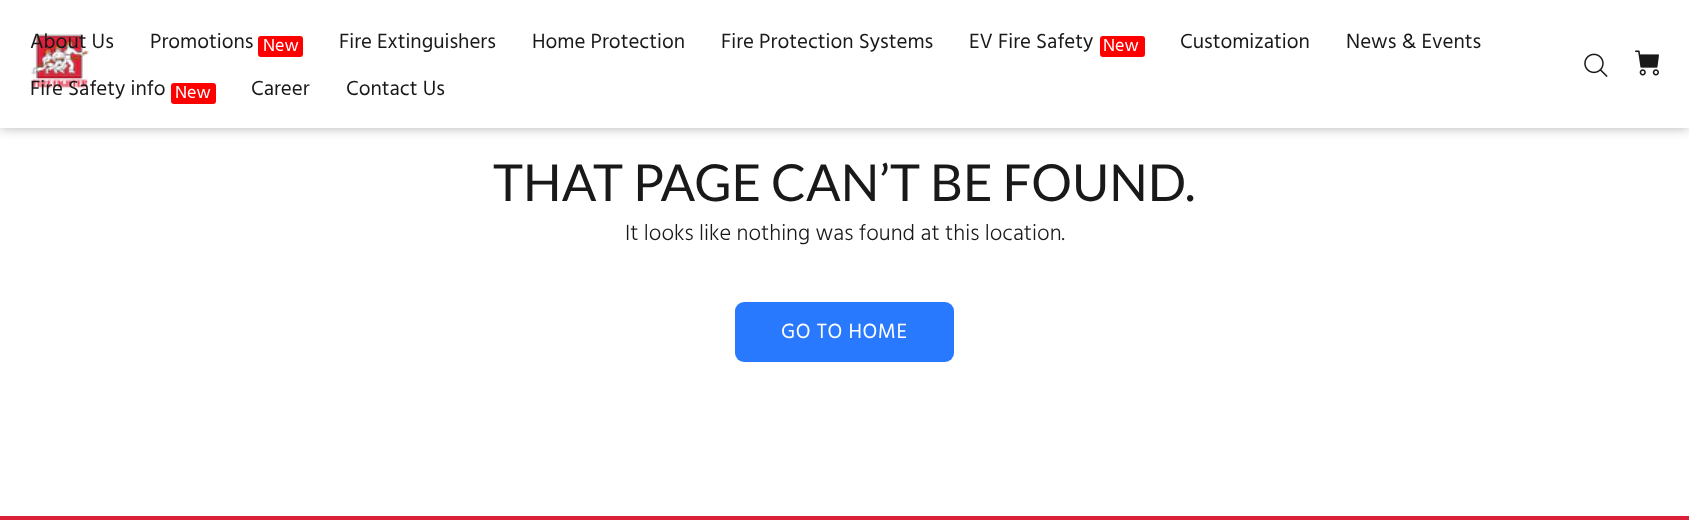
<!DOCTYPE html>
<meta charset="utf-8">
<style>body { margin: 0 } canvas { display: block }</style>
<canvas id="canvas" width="1689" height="520"></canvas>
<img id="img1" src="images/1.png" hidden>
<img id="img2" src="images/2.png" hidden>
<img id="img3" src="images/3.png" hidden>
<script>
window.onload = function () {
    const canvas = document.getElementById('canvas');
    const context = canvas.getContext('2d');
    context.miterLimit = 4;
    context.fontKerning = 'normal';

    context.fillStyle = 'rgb(255, 255, 255)';
    context.fillRect(0, 0, 1689, 520);
    context.fillStyle = 'rgba(0, 0, 0, 0.3)';
    context.filter = 'blur(6px)';
    context.beginPath();
    context.rect(0, 0, 1689, 128);
    context.fill();
    context.filter = 'none';
    context.fillStyle = 'rgb(255, 255, 255)';
    context.fillRect(0, 0, 1689, 128);
    context.fillStyle = 'rgb(255, 0, 0)';
    context.beginPath();
    context.roundRect(258, 36, 45, 21, 3);
    context.fill();
    context.beginPath();
    context.roundRect(1100, 36, 45, 21, 3);
    context.fill();
    context.beginPath();
    context.roundRect(171, 83, 45, 21, 3);
    context.fill();
    context.drawImage(document.getElementById('img1'), 31, 34, 58, 55);
    context.drawImage(document.getElementById('img2'), 1584, 53, 24, 24);
    context.drawImage(document.getElementById('img3'), 1635, 50, 24, 26);
    context.fillStyle = 'rgb(40, 121, 254)';
    context.beginPath();
    context.roundRect(735, 302, 219, 60, 9);
    context.fill();
    context.fillStyle = 'rgb(219, 33, 57)';
    context.fillRect(0, 516, 1689, 4);
    context.font = '21px Hind';
    context.fillStyle = 'rgb(25, 25, 25)';
    context.fillText('About Us', 30, 48);
    context.fillText('Promotions', 150, 48);
    context.font = '18px Hind';
    context.fillStyle = 'rgb(255, 255, 255)';
    context.fillText('New', 263, 51);
    context.font = '21px Hind';
    context.fillStyle = 'rgb(25, 25, 25)';
    context.fillText('Fire Extinguishers', 339, 48);
    context.fillText('Home Protection', 532, 48);
    context.fillText('Fire Protection Systems', 721, 48);
    context.fillText('EV Fire Safety', 969, 48);
    context.font = '18px Hind';
    context.fillStyle = 'rgb(255, 255, 255)';
    context.fillText('New', 1103, 51);
    context.font = '21px Hind';
    context.fillStyle = 'rgb(25, 25, 25)';
    context.fillText('Customization', 1180, 48);
    context.fillText('News & Events', 1346, 48);
    context.fillText('Fire Safety info', 30, 95);
    context.font = '18px Hind';
    context.fillStyle = 'rgb(255, 255, 255)';
    context.fillText('New', 175, 98);
    context.font = '21px Hind';
    context.fillStyle = 'rgb(25, 25, 25)';
    context.fillText('Career', 251, 95);
    context.fillText('Contact Us', 346, 95);
    context.font = '51px Lato';
    context.fillText('THAT PAGE CAN’T BE FOUND.', 493, 201);
    context.font = '300 22.5px Hind';
    context.fillText('It looks like nothing was found at this location.', 625, 240);
    context.letterSpacing = '0.6px';
    context.font = '21px Hind';
    context.fillStyle = 'rgb(255, 255, 255)';
    context.fillText('GO TO HOME', 781, 338);
};
</script>
